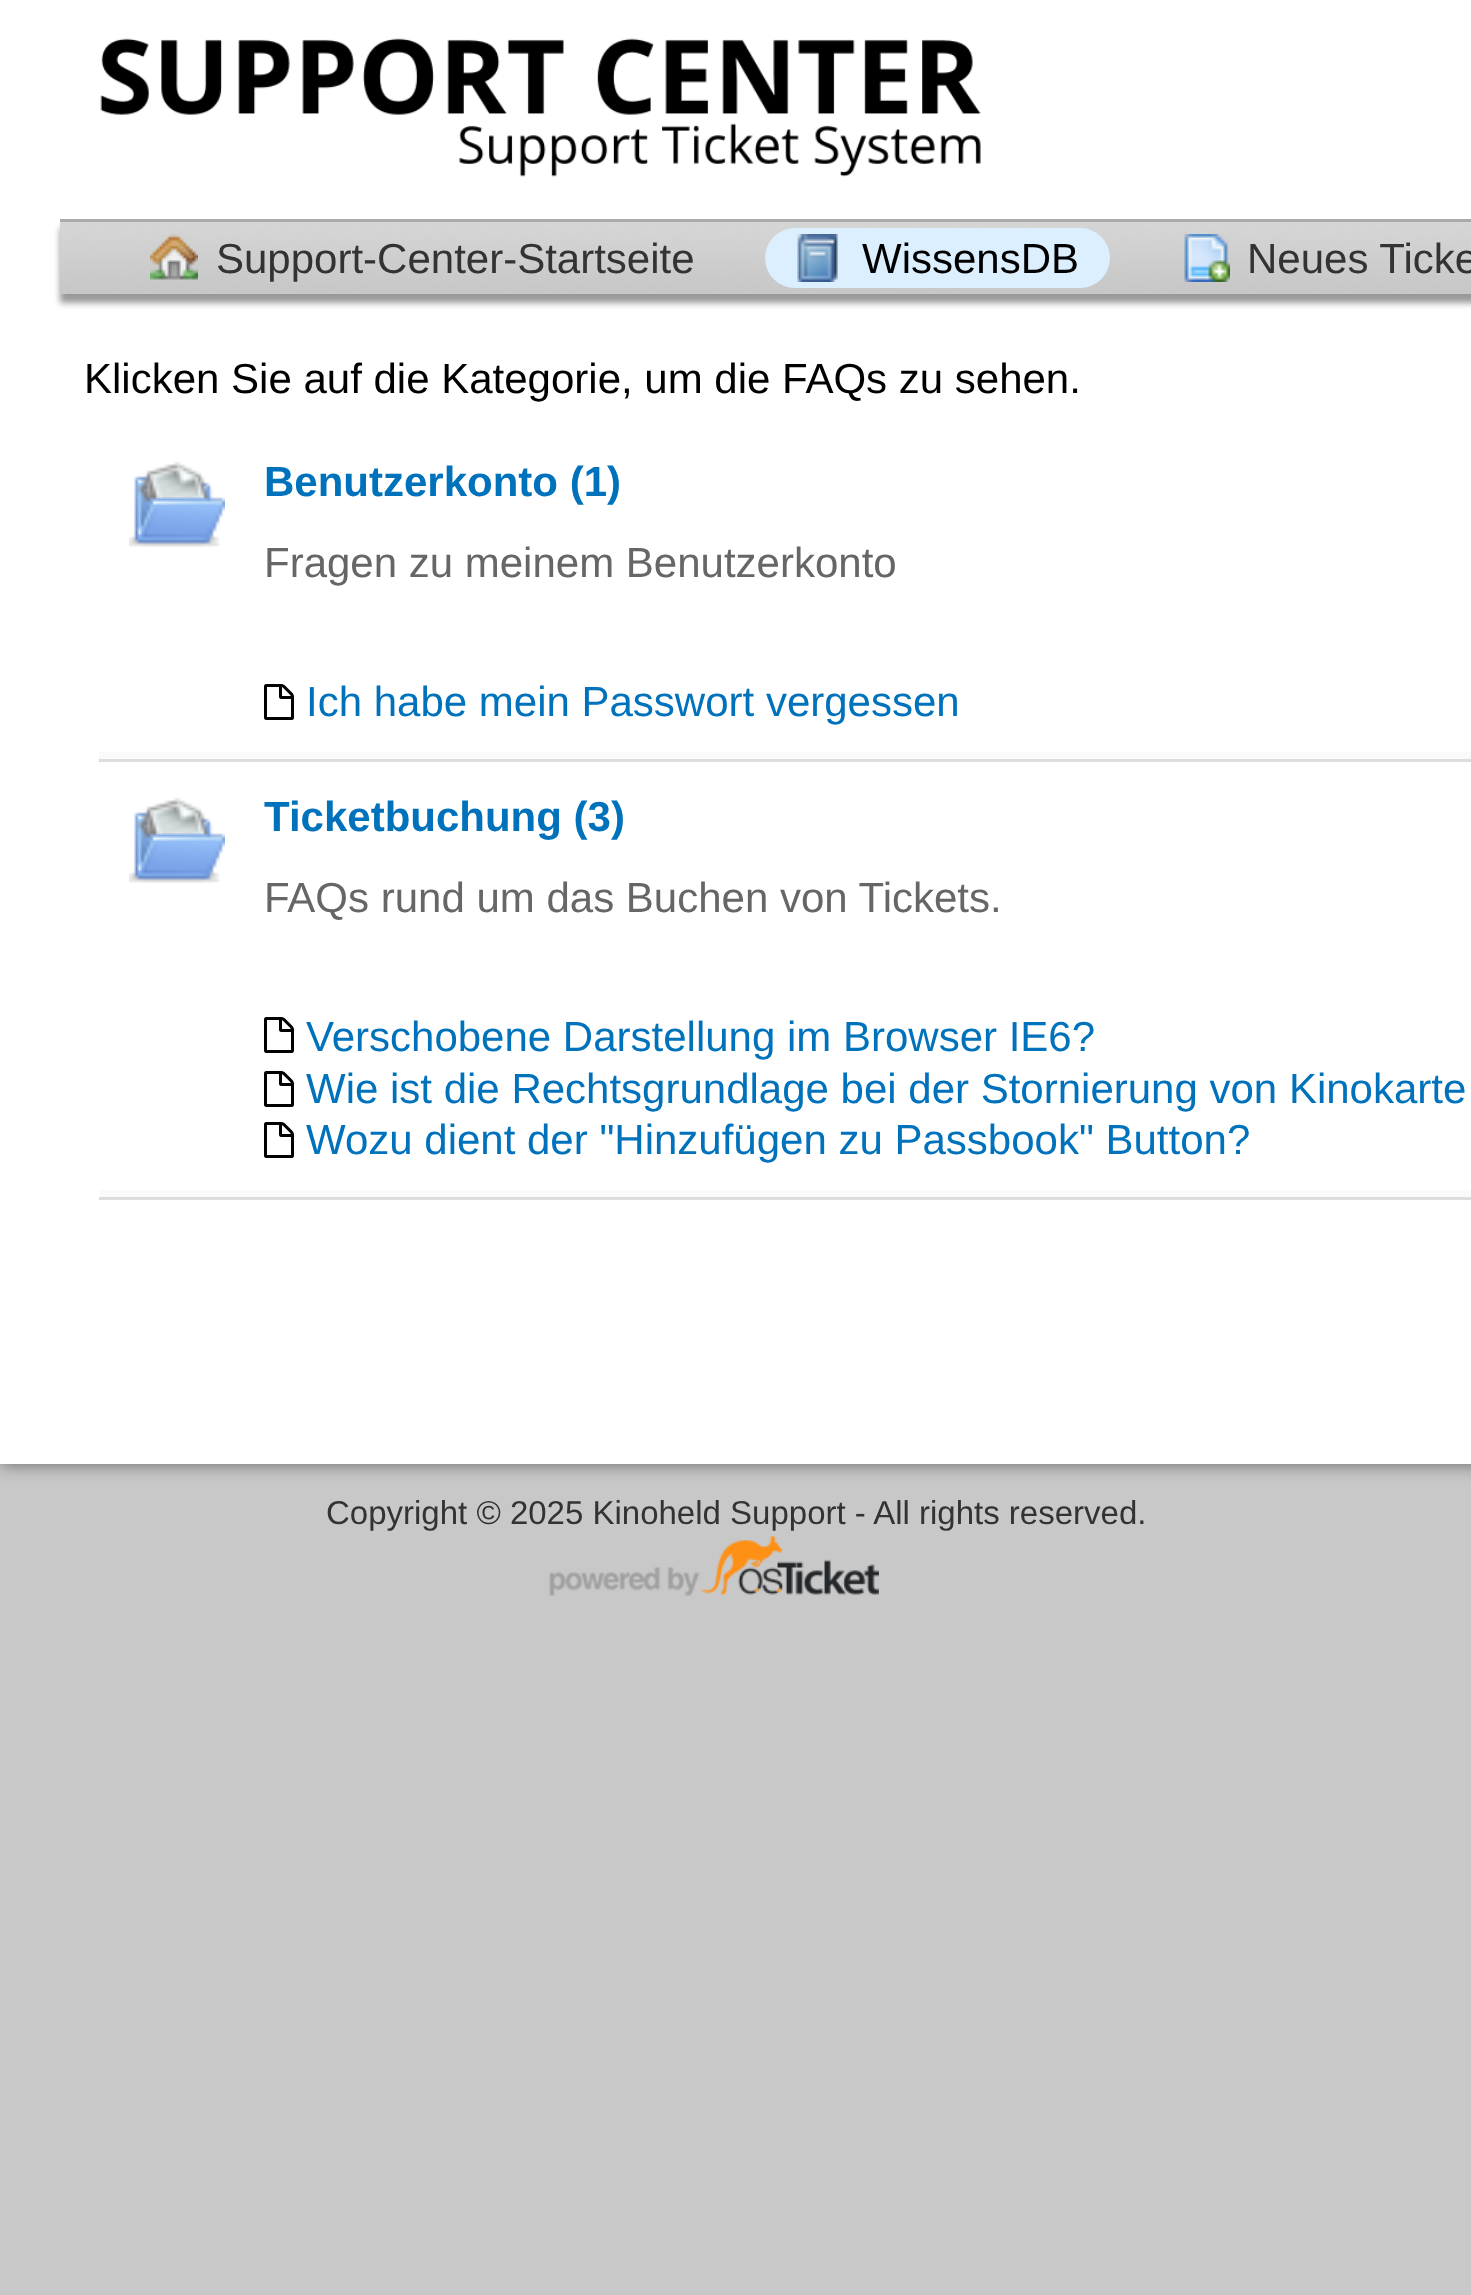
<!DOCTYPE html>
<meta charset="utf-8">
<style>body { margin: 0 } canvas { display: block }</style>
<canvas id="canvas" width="1471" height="2295"></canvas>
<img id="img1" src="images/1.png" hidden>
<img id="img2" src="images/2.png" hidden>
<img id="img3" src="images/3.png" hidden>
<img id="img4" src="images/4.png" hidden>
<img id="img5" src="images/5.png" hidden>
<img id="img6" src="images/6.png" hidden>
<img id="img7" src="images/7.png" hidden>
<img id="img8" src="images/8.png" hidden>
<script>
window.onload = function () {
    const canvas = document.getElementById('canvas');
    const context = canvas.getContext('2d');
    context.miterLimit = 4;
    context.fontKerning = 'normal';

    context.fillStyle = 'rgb(200, 200, 200)';
    context.fillRect(0, 0, 1471, 2295);
    context.fillStyle = 'rgba(0, 0, 0, 0.5)';
    context.filter = 'blur(9px)';
    context.beginPath();
    context.rect(0, 0, 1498, 1464);
    context.fill();
    context.filter = 'none';
    context.fillStyle = 'rgb(255, 255, 255)';
    context.fillRect(0, 0, 1471, 1464);
    context.drawImage(document.getElementById('img1'), 100, 38, 881, 139);
    context.fillStyle = 'rgba(0, 0, 0, 0.4)';
    context.filter = 'blur(3px)';
    context.beginPath();
    context.rect(60, 228, 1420, 75);
    context.fill();
    context.filter = 'none';
    context.drawImage(document.getElementById('img2'), 60, 222, 1411, 72);
    context.fillStyle = 'rgb(170, 170, 170)';
    context.fillRect(60, 219, 1411, 3);
    context.drawImage(document.getElementById('img3'), 150, 234, 48, 46);
    context.fillStyle = 'rgb(219, 239, 255)';
    context.beginPath();
    context.roundRect(765, 228, 345, 60, 30);
    context.fill();
    context.drawImage(document.getElementById('img4'), 797, 234, 41, 48);
    context.drawImage(document.getElementById('img5'), 1184, 234, 46, 48);
    context.fillStyle = 'rgb(250, 250, 250)';
    context.fillRect(99, 752, 1372, 7);
    context.fillStyle = 'rgb(221, 221, 221)';
    context.fillRect(99, 759, 1372, 3);
    context.drawImage(document.getElementById('img6'), 129, 461, 96, 86);
    context.drawImage(document.getElementById('img7'), 264, 684, 30, 36);
    context.fillStyle = 'rgb(250, 250, 250)';
    context.fillRect(99, 1190, 1372, 7);
    context.fillStyle = 'rgb(221, 221, 221)';
    context.fillRect(99, 1197, 1372, 3);
    context.drawImage(document.getElementById('img6'), 129, 797, 96, 86);
    context.drawImage(document.getElementById('img7'), 264, 1017, 30, 36);
    context.drawImage(document.getElementById('img7'), 264, 1071, 30, 36);
    context.drawImage(document.getElementById('img7'), 264, 1122, 30, 36);
    context.drawImage(document.getElementById('img8'), 549, 1536, 330, 60);
    context.font = '42px Liberation Sans';
    context.fillStyle = 'rgb(51, 51, 51)';
    context.fillText('Support-Center-Startseite', 216, 273);
    context.fillStyle = 'rgb(0, 0, 0)';
    context.fillText('WissensDB', 862, 273);
    context.fillStyle = 'rgb(51, 51, 51)';
    context.fillText('Neues Ticke', 1247, 273);
    context.fillStyle = 'rgb(0, 0, 0)';
    context.fillText('Klicken Sie auf die Kategorie, um die FAQs zu sehen.', 84, 393);
    context.font = 'bold 42px Liberation Sans';
    context.fillStyle = 'rgb(0, 114, 188)';
    context.fillText('Benutzerkonto (1)', 264, 496);
    context.font = '42px Liberation Sans';
    context.fillStyle = 'rgb(102, 102, 102)';
    context.fillText('Fragen zu meinem Benutzerkonto', 264, 577);
    context.fillStyle = 'rgb(0, 114, 188)';
    context.fillText('Ich habe mein Passwort vergessen', 306, 716);
    context.font = 'bold 42px Liberation Sans';
    context.fillText('Ticketbuchung (3)', 264, 831);
    context.font = '42px Liberation Sans';
    context.fillStyle = 'rgb(102, 102, 102)';
    context.fillText('FAQs rund um das Buchen von Tickets.', 264, 912);
    context.fillStyle = 'rgb(0, 114, 188)';
    context.fillText('Verschobene Darstellung im Browser IE6?', 306, 1051);
    context.fillText('Wie ist die Rechtsgrundlage bei der Stornierung von Kinokarte', 306, 1103);
    context.fillText('Wozu dient der "Hinzufügen zu Passbook" Button?', 306, 1154);
    context.font = '33px Liberation Sans';
    context.fillStyle = 'rgb(51, 51, 51)';
    context.fillText('Copyright © 2025 Kinoheld Support - All rights reserved.', 326, 1524);
};
</script>
